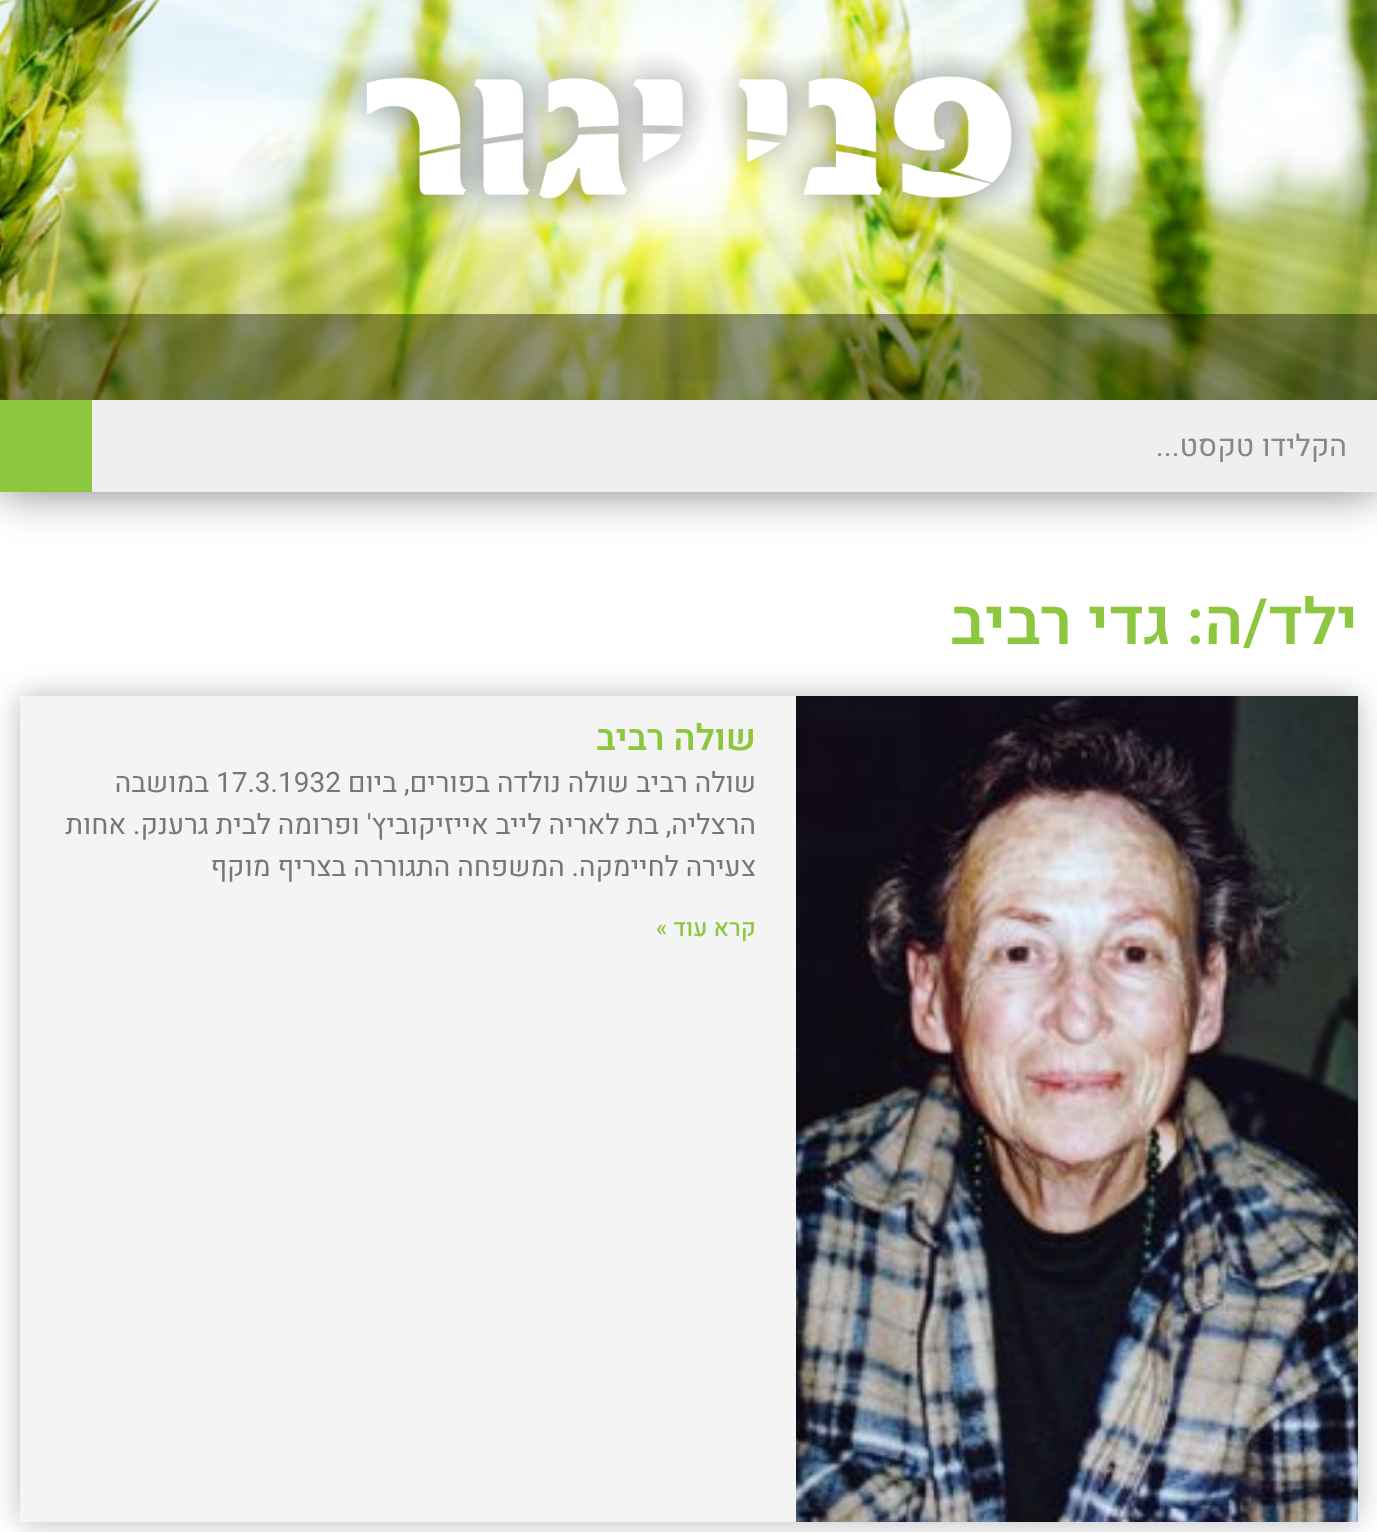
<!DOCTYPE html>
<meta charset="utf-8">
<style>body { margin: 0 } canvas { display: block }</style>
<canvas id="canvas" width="1377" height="1532"></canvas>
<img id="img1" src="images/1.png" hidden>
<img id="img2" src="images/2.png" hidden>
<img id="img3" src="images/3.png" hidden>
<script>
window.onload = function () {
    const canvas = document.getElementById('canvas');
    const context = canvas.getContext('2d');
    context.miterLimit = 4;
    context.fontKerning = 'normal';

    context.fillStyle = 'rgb(255, 255, 255)';
    context.fillRect(0, 0, 1377, 1532);
    context.fillStyle = 'rgba(0, 0, 0, 0.5)';
    context.filter = 'blur(23px)';
    context.beginPath();
    context.rect(0, 0, 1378, 492);
    context.fill();
    context.filter = 'none';
    context.drawImage(document.getElementById('img1'), 0, 0, 1377, 400);
    context.drawImage(document.getElementById('img2'), 344, 51, 693, 172);
    context.fillStyle = 'rgba(0, 0, 0, 0.39)';
    context.fillRect(0, 314, 1377, 86);
    context.fillStyle = 'rgba(0, 0, 0, 0.05)';
    context.fillRect(660, 314, 58, 66);
    context.fillStyle = 'rgb(239, 239, 239)';
    context.fillRect(92, 400, 1285, 92);
    context.fillStyle = 'rgb(141, 198, 63)';
    context.fillRect(0, 400, 92, 92);
    context.fillStyle = 'rgba(0, 0, 0, 0.27)';
    context.filter = 'blur(15px)';
    context.beginPath();
    context.rect(20, 696, 1338, 826);
    context.fill();
    context.filter = 'none';
    context.fillStyle = 'rgb(244, 244, 244)';
    context.fillRect(20, 696, 776, 826);
    context.drawImage(document.getElementById('img3'), 796, 696, 562, 826);
    context.direction = 'rtl';
    context.font = '30px Heebo';
    context.fillStyle = 'rgb(135, 135, 136)';
    context.fillText('הקלידו טקסט...', 1347, 456);
    context.font = '600 64px Heebo';
    context.fillStyle = 'rgb(141, 198, 63)';
    context.fillText('ילד/ה: גדי רביב', 1358, 644);
    context.font = '600 36px Heebo';
    context.fillText('שולה רביב', 756, 750);
    context.font = '28px Heebo';
    context.fillStyle = 'rgb(119, 119, 119)';
    context.fillText('שולה רביב שולה נולדה בפורים, ביום', 756, 792);
    context.direction = 'ltr';
    context.fillText('17.3.1932', 216, 792);
    context.direction = 'rtl';
    context.fillText('במושבה', 209, 792);
    context.fillText('הרצליה, בת לאריה לייב אייזיקוביץ\' ופרומה לבית גרענק. אחות', 756, 834);
    context.fillText('צעירה לחיימקה. המשפחה התגוררה בצריף מוקף', 756, 876);
    context.font = '500 24px Heebo';
    context.fillStyle = 'rgb(141, 198, 63)';
    context.fillText('קרא עוד »', 756, 936);
};
</script>
